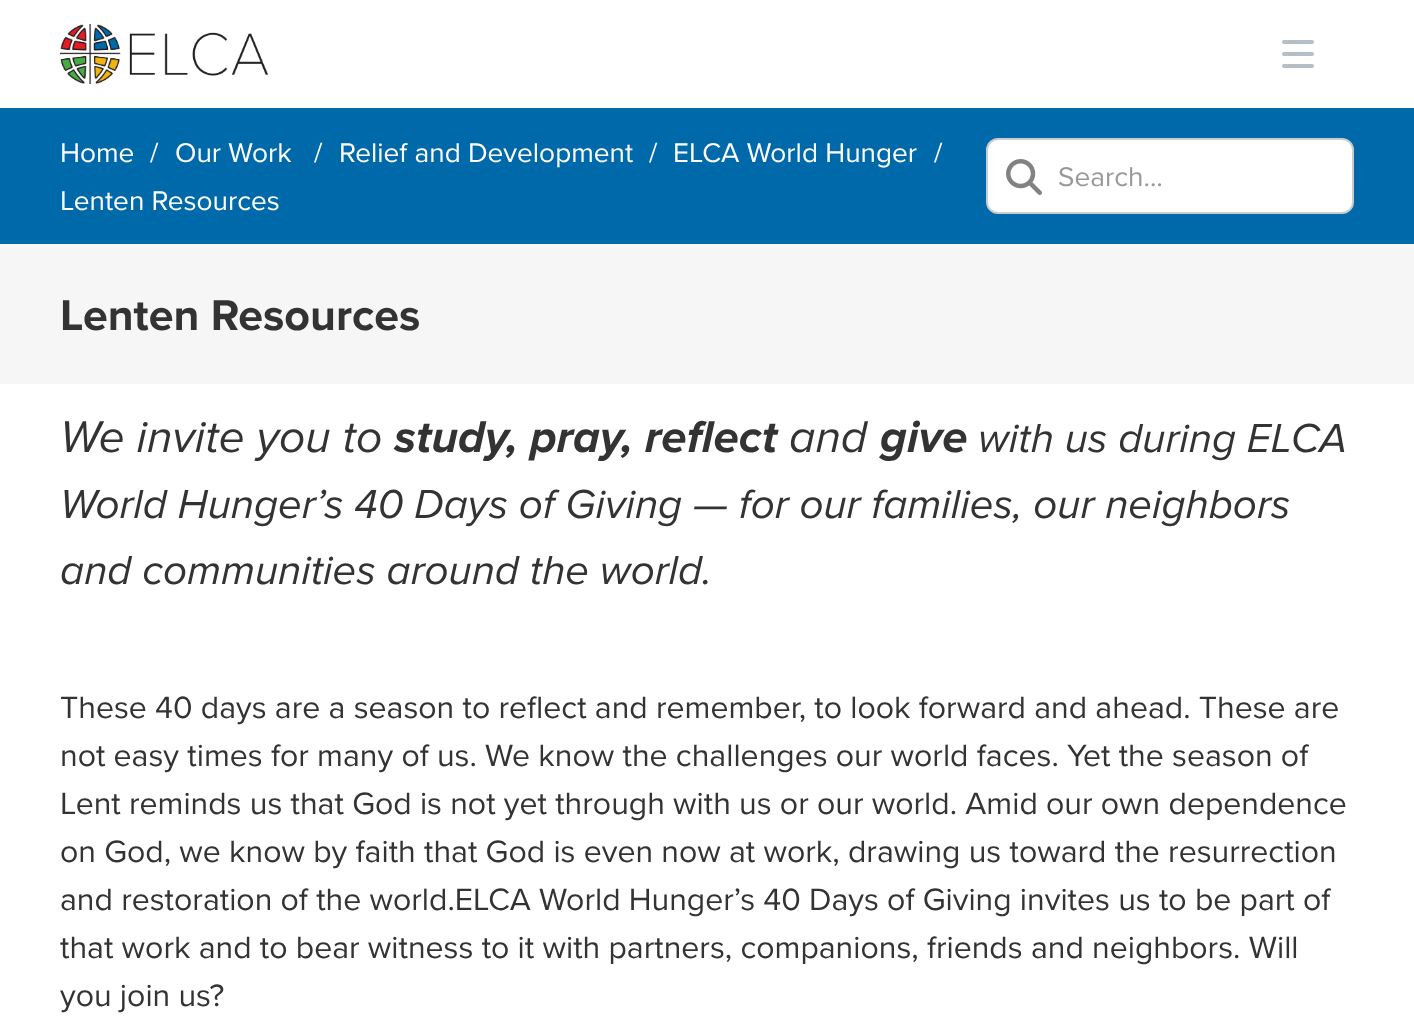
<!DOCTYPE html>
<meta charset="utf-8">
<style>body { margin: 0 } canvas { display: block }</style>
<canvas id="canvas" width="1414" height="1020"></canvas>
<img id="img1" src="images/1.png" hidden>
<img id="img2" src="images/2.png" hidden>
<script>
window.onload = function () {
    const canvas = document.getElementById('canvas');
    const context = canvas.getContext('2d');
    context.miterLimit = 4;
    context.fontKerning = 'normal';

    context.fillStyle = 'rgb(255, 255, 255)';
    context.fillRect(0, 0, 1414, 1020);
    context.drawImage(document.getElementById('img1'), 60, 24, 208, 60);
    context.fillStyle = 'rgb(183, 191, 198)';
    context.beginPath();
    context.roundRect(1282, 40, 32, 4, 2);
    context.fill();
    context.beginPath();
    context.roundRect(1282, 52, 32, 4, 2);
    context.fill();
    context.beginPath();
    context.roundRect(1282, 64, 32, 4, 2);
    context.fill();
    context.fillStyle = 'rgb(0, 105, 170)';
    context.fillRect(0, 108, 1414, 136);
    context.fillStyle = 'rgb(255, 255, 255)';
    context.beginPath();
    context.roundRect(987, 139, 366, 74, 11);
    context.fill();
    context.strokeStyle = 'rgb(204, 204, 204)';
    context.lineWidth = 2;
    context.stroke();
    context.drawImage(document.getElementById('img2'), 1006, 159, 36, 36);
    context.fillStyle = 'rgb(246, 246, 246)';
    context.fillRect(0, 244, 1414, 140);
    context.font = '28px Proxima Nova';
    context.fillStyle = 'rgb(255, 255, 255)';
    context.fillText('Home', 60, 162);
    context.fillText('/', 150, 162);
    context.fillText('Our Work', 175, 162);
    context.fillText('/', 314, 162);
    context.fillText('Relief and Development', 339, 162);
    context.fillText('/', 649, 162);
    context.fillText('ELCA World Hunger', 673, 162);
    context.fillText('/', 934, 162);
    context.fillText('Lenten Resources', 60, 210);
    context.fillStyle = 'rgb(153, 153, 153)';
    context.fillText('Search…', 1058, 186);
    context.font = 'bold 44.75px Proxima Nova';
    context.fillStyle = 'rgb(51, 51, 51)';
    context.fillText('Lenten Resources', 60, 330);
    context.font = 'italic 46px Proxima Nova';
    context.fillText('We invite you to', 60, 452);
    context.font = 'italic bold 46px Proxima Nova';
    context.fillText('study, pray, reflect', 394, 452);
    context.font = 'italic 46px Proxima Nova';
    context.fillText('and', 789, 452);
    context.font = 'italic bold 46px Proxima Nova';
    context.fillText('give', 880, 452);
    context.font = 'italic 42px Proxima Nova';
    context.fillText('with us during ELCA', 978, 452);
    context.fillText('World Hunger’s 40 Days of Giving — for our families, our neighbors', 60, 518);
    context.fillText('and communities around the world.', 60, 584);
    context.font = '32px Proxima Nova';
    context.fillText('These 40 days are a season to reflect and remember, to look forward and ahead. These are', 60, 718);
    context.fillText('not easy times for many of us. We know the challenges our world faces. Yet the season of', 60, 766);
    context.fillText('Lent reminds us that God is not yet through with us or our world. Amid our own dependence', 60, 814);
    context.fillText('on God, we know by faith that God is even now at work, drawing us toward the resurrection', 60, 862);
    context.fillText('and restoration of the world.ELCA World Hunger’s 40 Days of Giving invites us to be part of', 60, 910);
    context.fillText('that work and to bear witness to it with partners, companions, friends and neighbors. Will', 60, 958);
    context.fillText('you join us?', 60, 1006);
};
</script>
